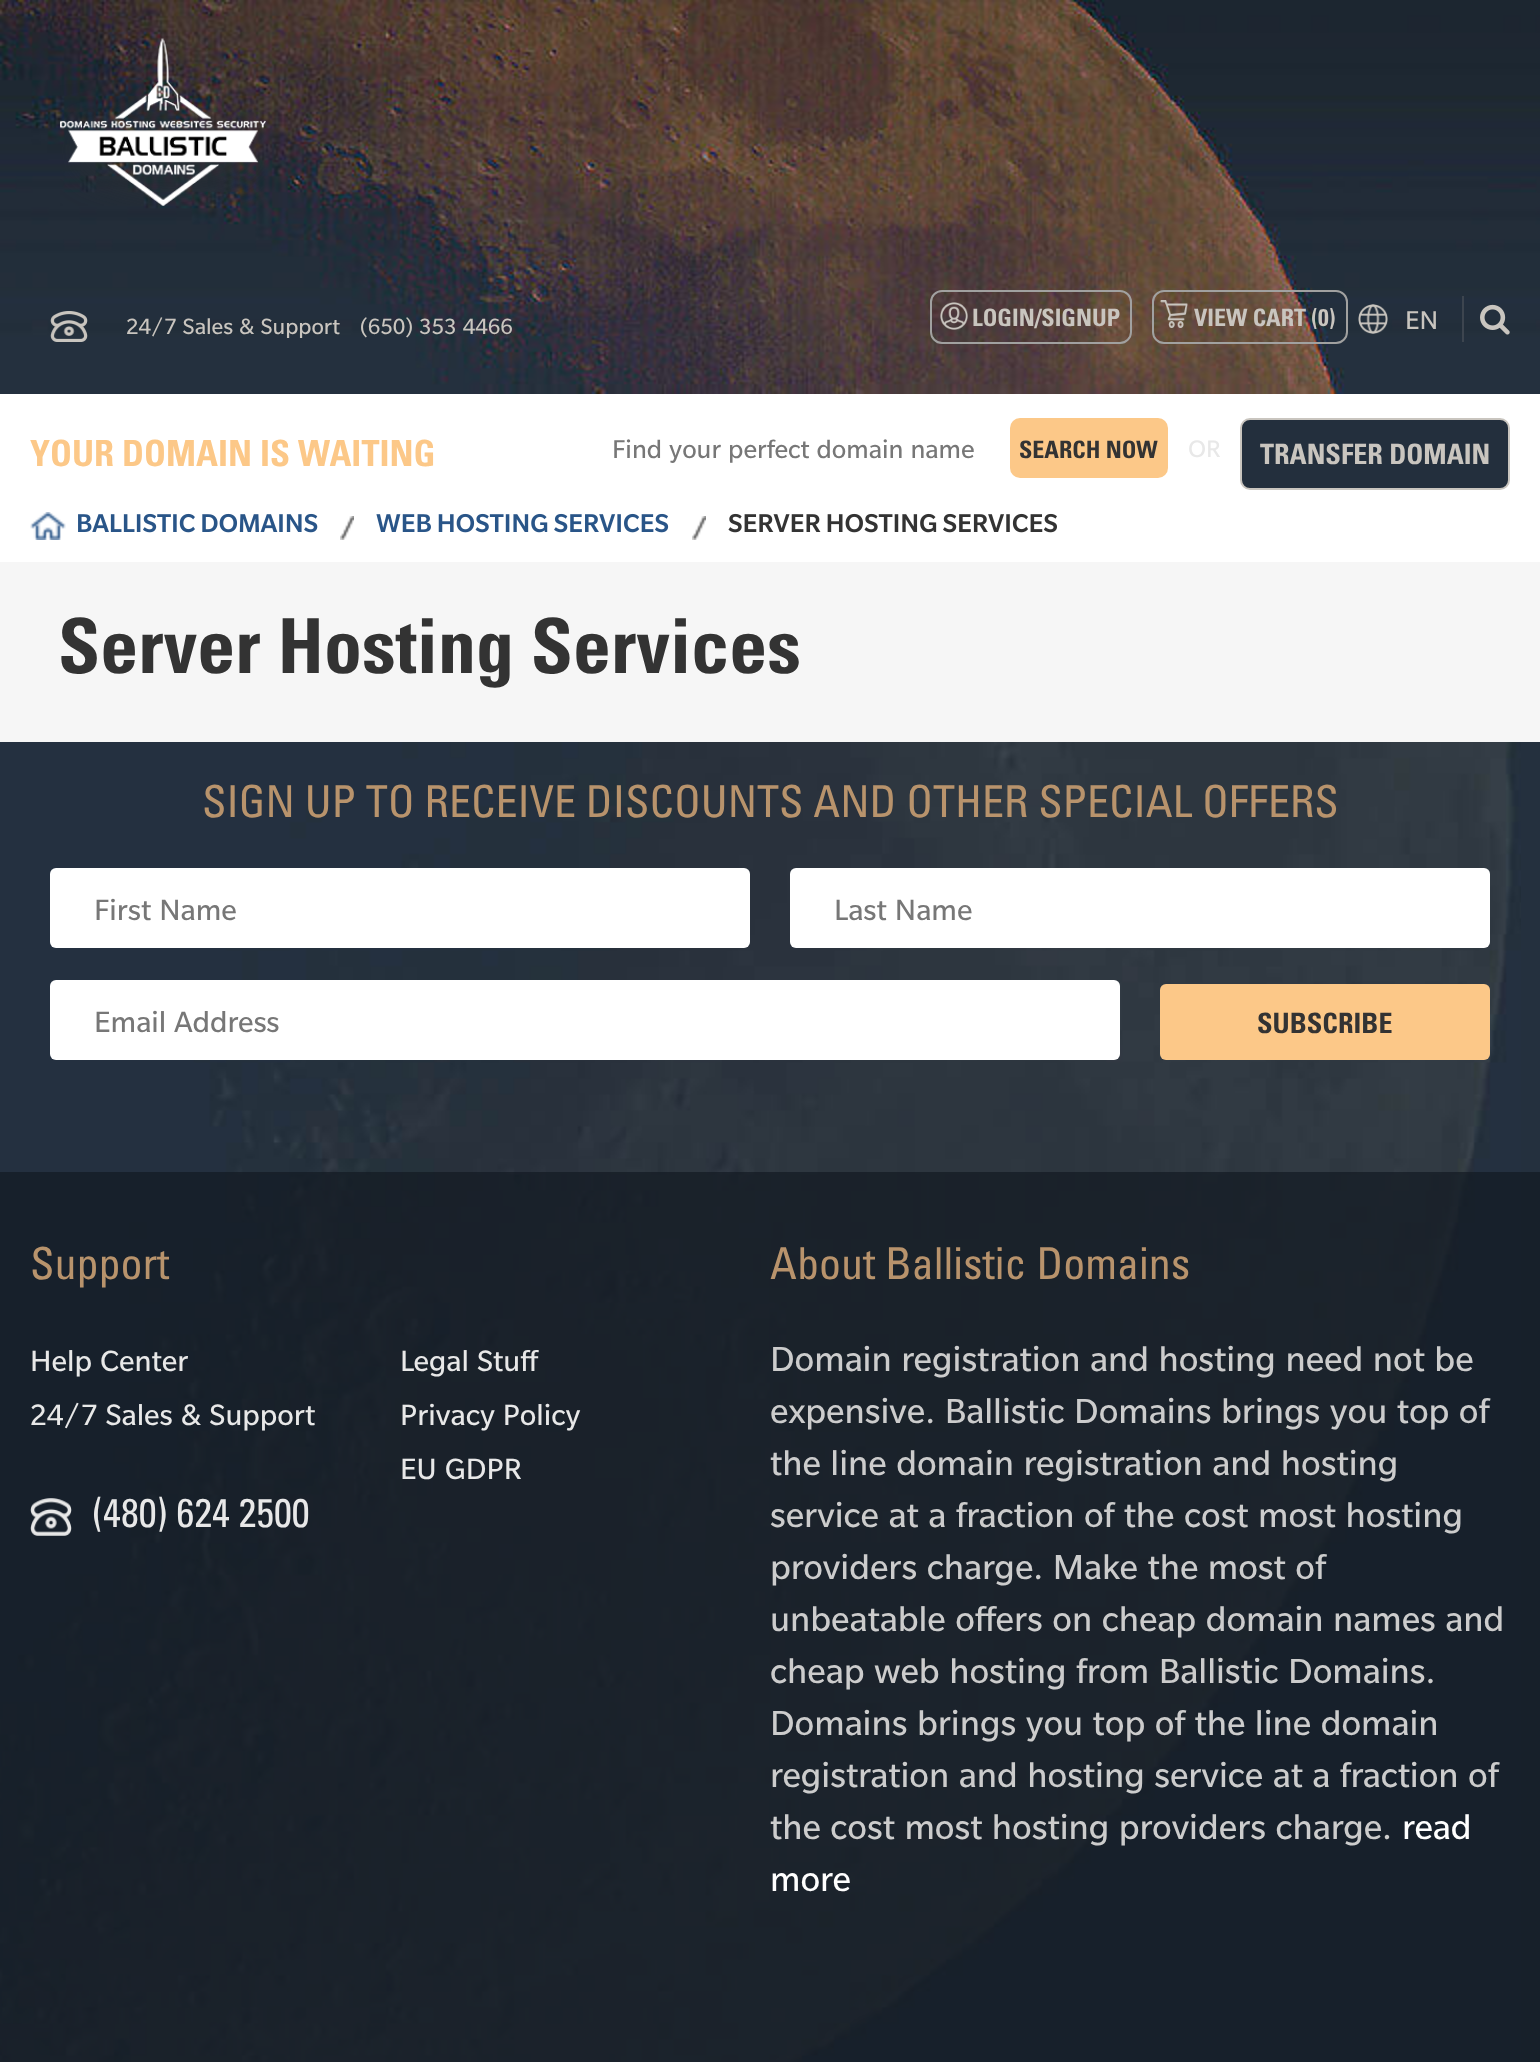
<!DOCTYPE html>
<meta charset="utf-8">
<style>body { margin: 0 } canvas { display: block }</style>
<canvas id="canvas" width="1540" height="2062"></canvas>
<img id="img1" src="images/1.png" hidden>
<img id="img2" src="images/2.png" hidden>
<img id="img3" src="images/3.png" hidden>
<img id="img4" src="images/4.png" hidden>
<img id="img5" src="images/5.png" hidden>
<img id="img6" src="images/6.png" hidden>
<img id="img7" src="images/7.png" hidden>
<img id="img8" src="images/8.png" hidden>
<img id="img9" src="images/9.png" hidden>
<img id="img10" src="images/10.png" hidden>
<img id="img11" src="images/11.png" hidden>
<img id="img12" src="images/12.png" hidden>
<img id="img13" src="images/13.png" hidden>
<img id="img14" src="images/14.png" hidden>
<script>
window.onload = function () {
    const canvas = document.getElementById('canvas');
    const context = canvas.getContext('2d');
    context.miterLimit = 4;
    context.fontKerning = 'normal';

    context.fillStyle = 'rgb(255, 255, 255)';
    context.fillRect(0, 0, 1540, 2062);
    context.drawImage(document.getElementById('img1'), 0, 0, 1540, 394);
    context.drawImage(document.getElementById('img2'), 60, 38, 206, 168);
    context.drawImage(document.getElementById('img3'), 50, 311, 38, 31);
    context.drawImage(document.getElementById('img4'), 940, 302, 28, 28);
    context.beginPath();
    context.roundRect(931, 291, 200, 52, 11);
    context.strokeStyle = 'rgb(161, 161, 160)';
    context.lineWidth = 2;
    context.stroke();
    context.drawImage(document.getElementById('img5'), 1160, 300, 28, 28);
    context.beginPath();
    context.roundRect(1153, 291, 194, 52, 11);
    context.stroke();
    context.fillStyle = 'rgb(61, 69, 79)';
    context.fillRect(1462, 296, 2, 46);
    context.drawImage(document.getElementById('img6'), 1358, 304, 30, 30);
    context.drawImage(document.getElementById('img7'), 1480, 304, 30, 31);
    context.fillStyle = 'rgb(252, 200, 136)';
    context.beginPath();
    context.roundRect(1010, 418, 158, 60, 10);
    context.fill();
    context.fillStyle = 'rgb(35, 47, 61)';
    context.beginPath();
    context.roundRect(1241, 419, 268, 70, 9);
    context.fill();
    context.strokeStyle = 'rgb(201, 197, 191)';
    context.stroke();
    context.drawImage(document.getElementById('img8'), 340, 516, 14, 24);
    context.drawImage(document.getElementById('img9'), 30, 512, 36, 28);
    context.drawImage(document.getElementById('img10'), 78, 513, 240, 20);
    context.drawImage(document.getElementById('img8'), 692, 516, 14, 24);
    context.drawImage(document.getElementById('img11'), 376, 513, 293, 20);
    context.drawImage(document.getElementById('img12'), 728, 513, 329, 20);
    context.fillStyle = 'rgb(246, 246, 246)';
    context.fillRect(0, 562, 1540, 180);
    context.fillStyle = 'rgb(36, 48, 62)';
    context.fillRect(1521, 742, 19, 1320);
    context.drawImage(document.getElementById('img13'), 0, 742, 1521, 1320);
    context.fillStyle = 'rgb(255, 255, 255)';
    context.beginPath();
    context.roundRect(50, 868, 700, 80, 6);
    context.fill();
    context.beginPath();
    context.roundRect(790, 868, 700, 80, 6);
    context.fill();
    context.beginPath();
    context.roundRect(50, 980, 1070, 80, 6);
    context.fill();
    context.fillStyle = 'rgb(252, 200, 136)';
    context.beginPath();
    context.roundRect(1160, 984, 330, 76, 6);
    context.fill();
    context.fillStyle = 'rgba(19, 26, 34, 0.7)';
    context.fillRect(0, 1172, 1540, 890);
    context.drawImage(document.getElementById('img14'), 30, 1498, 42, 38);
    context.font = '24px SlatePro';
    context.fillStyle = 'rgb(201, 197, 191)';
    context.fillText('24/7 Sales & Support', 126, 334);
    context.fillText('(650) 353 4466', 360, 334);
    context.font = 'bold 24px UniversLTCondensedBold';
    context.fillText('LOGIN/SIGNUP', 972, 326);
    context.fillText('VIEW CART (0)', 1194, 326);
    context.font = '28px SlatePro';
    context.fillText('EN', 1405, 329);
    context.font = 'bold 36px UniversLTCondensedBold';
    context.fillStyle = 'rgb(252, 200, 136)';
    context.fillText('YOUR DOMAIN IS WAITING', 30, 466);
    context.font = '28px SlatePro';
    context.fillStyle = 'rgb(119, 119, 119)';
    context.fillText('Find your perfect domain name', 612, 458);
    context.font = 'bold 24px UniversLTCondensedBold';
    context.fillStyle = 'rgb(51, 51, 51)';
    context.fillText('SEARCH NOW', 1019, 458);
    context.font = '26px SlatePro';
    context.fillStyle = 'rgb(232, 232, 232)';
    context.fillText('OR', 1188, 457);
    context.font = 'bold 28px UniversLTCondensedBold';
    context.fillStyle = 'rgb(201, 197, 191)';
    context.fillText('TRANSFER DOMAIN', 1260, 464);
    context.font = 'bold 76px UniversLTCondensedBold';
    context.fillStyle = 'rgb(51, 51, 51)';
    context.fillText('Server Hosting Services', 58, 673);
    context.font = '44px "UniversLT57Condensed"';
    context.fillStyle = 'rgb(184, 147, 108)';
    context.fillText('SIGN UP TO RECEIVE DISCOUNTS AND OTHER SPECIAL OFFERS', 202, 817);
    context.font = '32px SlatePro';
    context.fillStyle = 'rgb(119, 119, 119)';
    context.fillText('First Name', 94, 920);
    context.fillText('Last Name', 834, 920);
    context.fillText('Email Address', 94, 1032);
    context.font = 'bold 28px UniversLTCondensedBold';
    context.fillStyle = 'rgb(51, 51, 51)';
    context.fillText('SUBSCRIBE', 1257, 1033);
    context.font = '44px "UniversLT57Condensed"';
    context.fillStyle = 'rgb(184, 147, 108)';
    context.fillText('Support', 30, 1279);
    context.font = '32px SlatePro';
    context.fillStyle = 'rgb(232, 232, 232)';
    context.fillText('Help Center', 30, 1371);
    context.fillText('24/7 Sales & Support', 30, 1425);
    context.font = '40px "UniversLT57Condensed"';
    context.fillText('(480) 624 2500', 92, 1527);
    context.font = '32px SlatePro';
    context.fillText('Legal Stuff', 400, 1371);
    context.fillText('Privacy Policy', 400, 1425);
    context.fillText('EU GDPR', 400, 1479);
    context.font = '44px "UniversLT57Condensed"';
    context.fillStyle = 'rgb(184, 147, 108)';
    context.fillText('About Ballistic Domains', 770, 1279);
    context.font = '38px SlatePro';
    context.fillStyle = 'rgb(204, 204, 204)';
    context.fillText('Domain registration and hosting need not be', 770, 1371);
    context.fillText('expensive. Ballistic Domains brings you top of', 770, 1423);
    context.fillText('the line domain registration and hosting', 770, 1475);
    context.fillText('service at a fraction of the cost most hosting', 770, 1527);
    context.fillText('providers charge. Make the most of', 770, 1579);
    context.fillText('unbeatable offers on cheap domain names and', 770, 1631);
    context.fillText('cheap web hosting from Ballistic Domains.', 770, 1683);
    context.fillText('Domains brings you top of the line domain', 770, 1735);
    context.fillText('registration and hosting service at a fraction of', 770, 1787);
    context.fillText('the cost most hosting providers charge.', 770, 1839);
    context.fillStyle = 'rgb(255, 255, 255)';
    context.fillText('read', 1402, 1839);
    context.fillText('more', 770, 1891);
};
</script>
